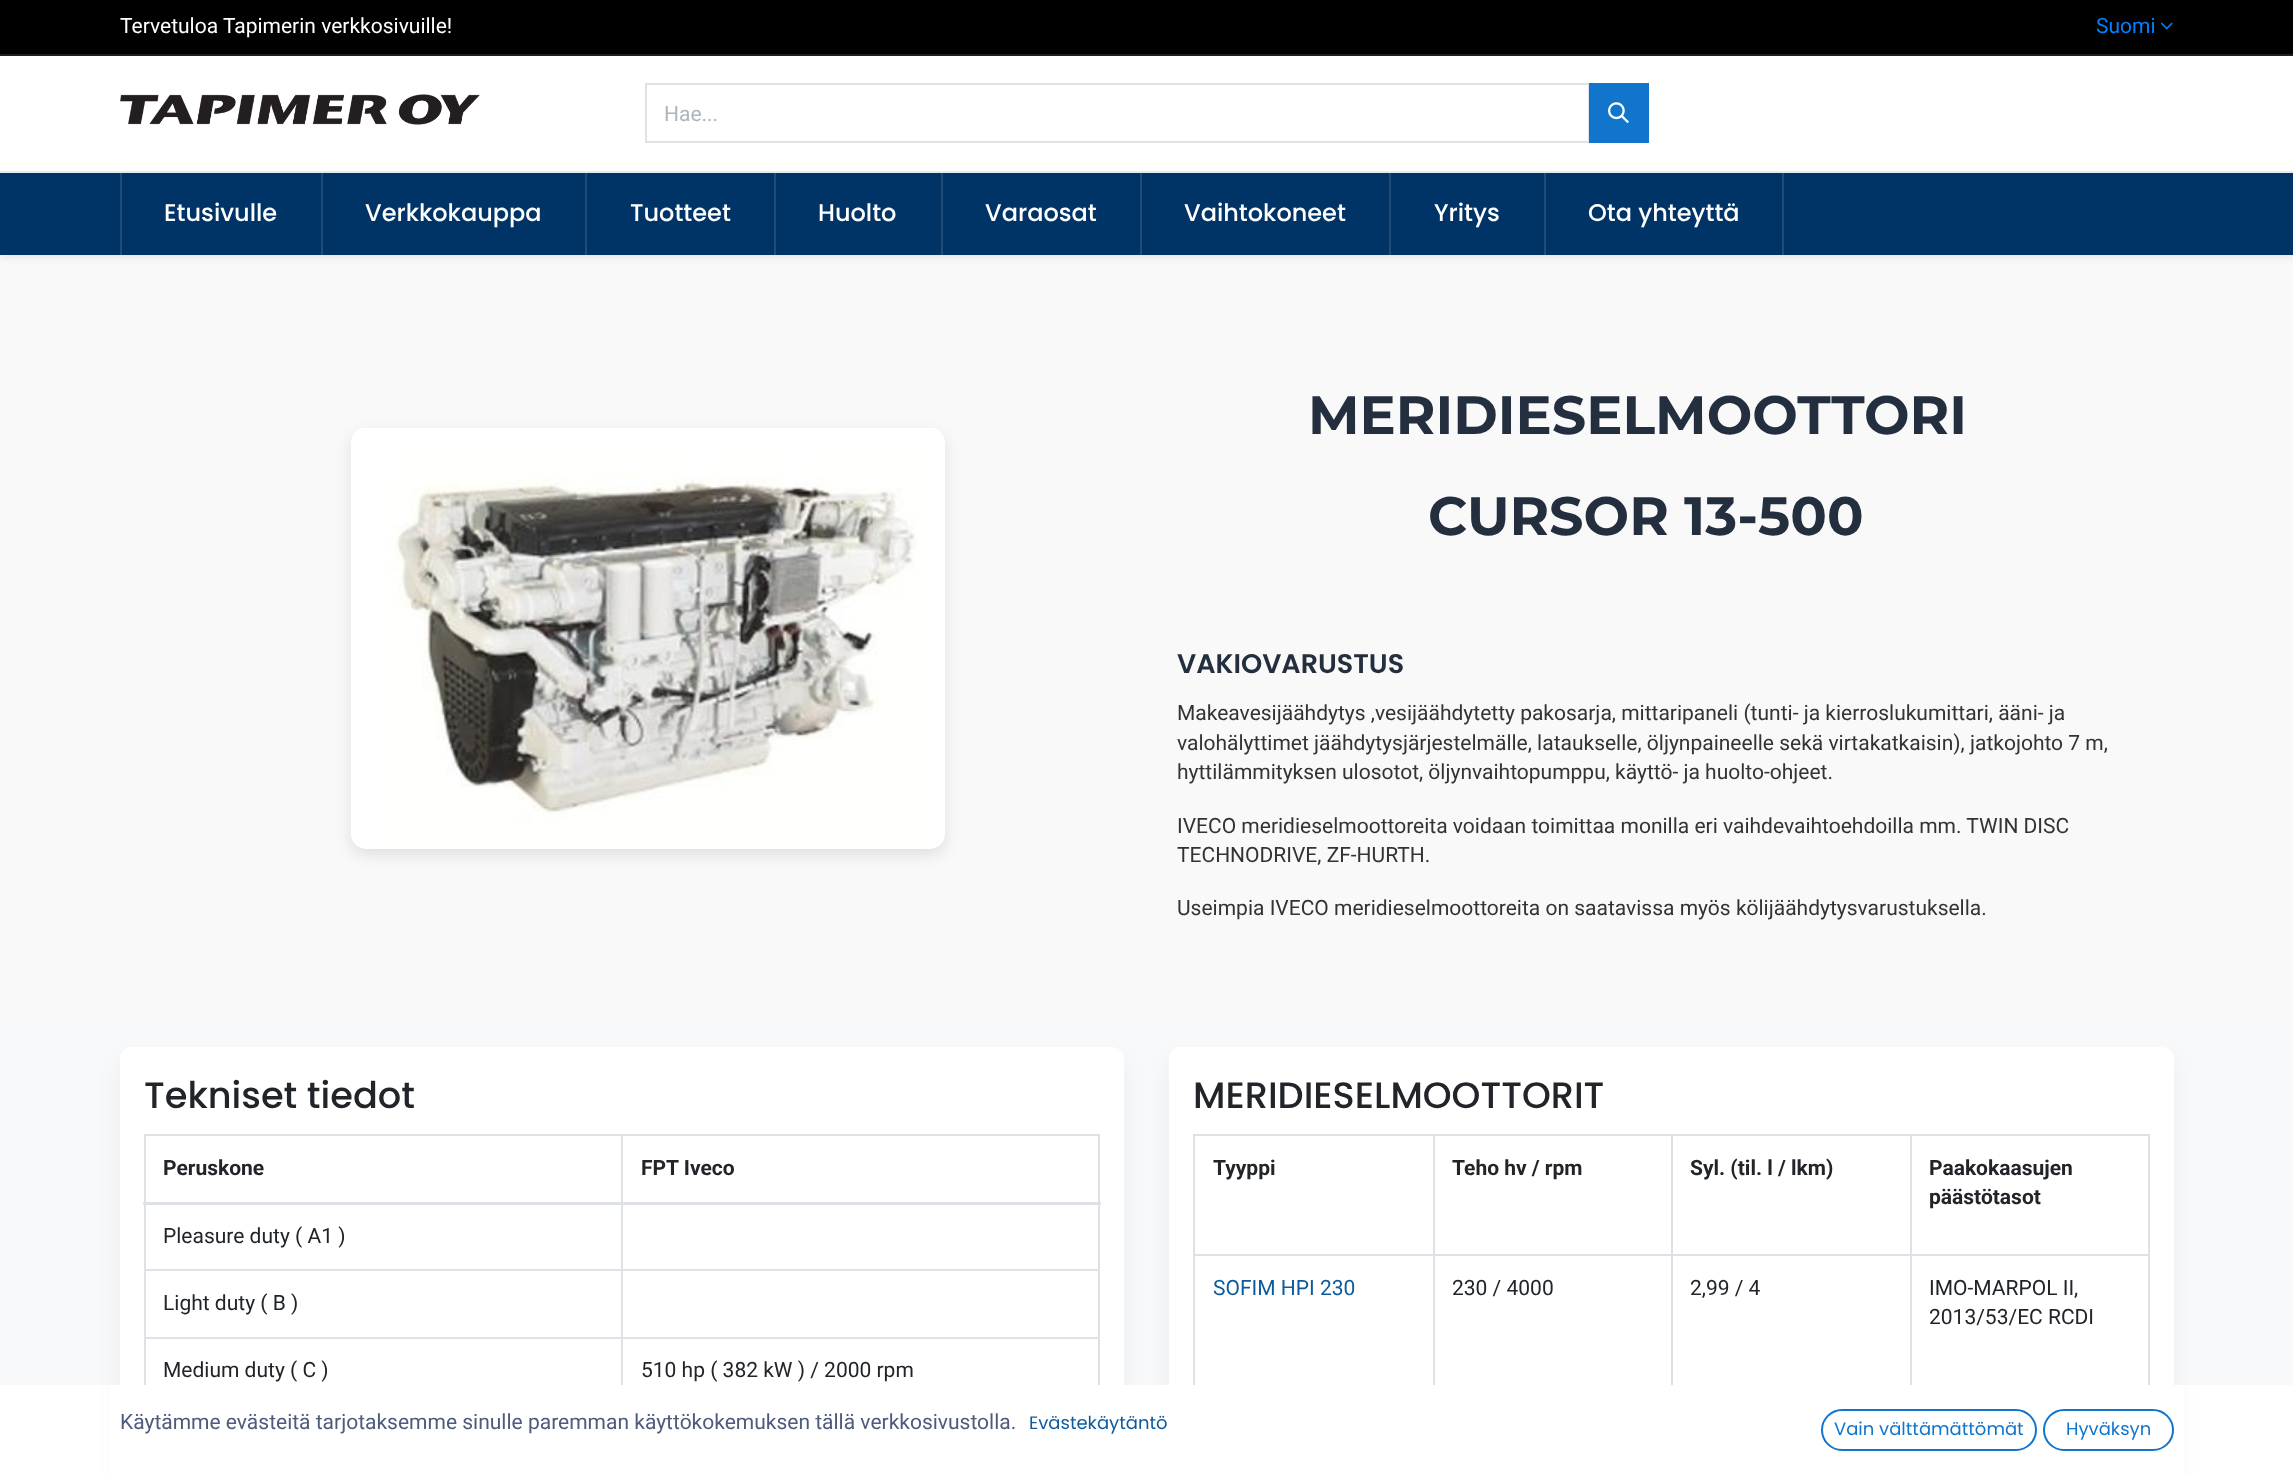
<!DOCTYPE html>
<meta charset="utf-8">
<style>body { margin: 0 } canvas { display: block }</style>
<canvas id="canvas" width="2293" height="1474"></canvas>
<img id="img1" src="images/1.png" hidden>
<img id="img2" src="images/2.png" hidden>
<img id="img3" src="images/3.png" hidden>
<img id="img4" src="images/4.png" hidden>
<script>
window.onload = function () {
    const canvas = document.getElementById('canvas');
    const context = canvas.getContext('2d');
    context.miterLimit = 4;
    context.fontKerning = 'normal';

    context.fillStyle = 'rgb(255, 255, 255)';
    context.fillRect(0, 0, 2293, 1474);
    context.fillStyle = 'rgb(0, 0, 0)';
    context.fillRect(0, 0, 2293, 54);
    context.fillStyle = 'rgb(31, 31, 31)';
    context.fillRect(0, 54, 2293, 2);
    context.drawImage(document.getElementById('img1'), 2160, 22, 13, 8);
    context.fillStyle = 'rgb(234, 235, 239)';
    context.fillRect(0, 171, 2293, 2);
    context.drawImage(document.getElementById('img2'), 120, 94, 360, 31);
    context.strokeStyle = 'rgb(222, 226, 230)';
    context.lineWidth = 2;
    context.strokeRect(646, 84, 943, 58);
    context.fillStyle = 'rgb(17, 117, 204)';
    context.fillRect(1589, 83, 60, 60);
    context.drawImage(document.getElementById('img3'), 1608, 102, 21, 22);
    context.fillStyle = 'rgb(249, 249, 249)';
    context.fillRect(0, 255, 2293, 768);
    context.fillStyle = 'rgba(0, 0, 0, 0.07)';
    context.filter = 'blur(3px)';
    context.beginPath();
    context.rect(0, 176, 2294, 82);
    context.fill();
    context.filter = 'none';
    context.fillStyle = 'rgb(0, 52, 103)';
    context.fillRect(0, 173, 2293, 82);
    context.fillStyle = 'rgb(31, 76, 121)';
    context.fillRect(120, 173, 2, 82);
    context.fillRect(321, 173, 2, 82);
    context.fillRect(585, 173, 2, 82);
    context.fillRect(774, 173, 2, 82);
    context.fillRect(941, 173, 2, 82);
    context.fillRect(1140, 173, 2, 82);
    context.fillRect(1389, 173, 2, 82);
    context.fillRect(1782, 173, 2, 82);
    context.fillRect(1544, 173, 2, 82);
    context.fillStyle = 'rgba(0, 0, 0, 0.1)';
    context.filter = 'blur(7.5px)';
    context.beginPath();
    context.roundRect(351, 434, 594, 421, 15);
    context.fill();
    context.filter = 'none';
    context.drawImage(document.getElementById('img4'), 351, 428, 594, 421);
    context.fillStyle = 'rgb(248, 249, 250)';
    context.fillRect(0, 1023, 2293, 362);
    context.fillStyle = 'rgba(0, 0, 0, 0.05)';
    context.filter = 'blur(12px)';
    context.beginPath();
    context.roundRect(120, 1059, 1004, 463, 12);
    context.fill();
    context.filter = 'none';
    context.fillStyle = 'rgb(255, 255, 255)';
    context.beginPath();
    context.moveTo(132, 1047);
    context.lineTo(1112, 1047);
    context.bezierCurveTo(1118.5, 1047, 1124, 1052.5, 1124, 1059);
    context.lineTo(1124, 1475);
    context.lineTo(120, 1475);
    context.lineTo(120, 1059);
    context.bezierCurveTo(120, 1052.5, 125.5, 1047, 132, 1047);
    context.closePath();
    context.fill();
    context.fillStyle = 'rgb(222, 226, 230)';
    context.fillRect(144, 1134, 956, 2);
    context.fillRect(144, 1269, 956, 2);
    context.fillRect(144, 1337, 956, 2);
    context.fillRect(144, 1134, 2, 251);
    context.fillRect(1098, 1134, 2, 251);
    context.fillRect(621, 1134, 2, 251);
    context.fillRect(143, 1202, 958, 3);
    context.fillStyle = 'rgba(0, 0, 0, 0.05)';
    context.filter = 'blur(12px)';
    context.beginPath();
    context.roundRect(1169, 1059, 1005, 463, 12);
    context.fill();
    context.filter = 'none';
    context.fillStyle = 'rgb(255, 255, 255)';
    context.beginPath();
    context.moveTo(1181, 1047);
    context.lineTo(2162, 1047);
    context.bezierCurveTo(2168.5, 1047, 2174, 1052.5, 2174, 1059);
    context.lineTo(2174, 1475);
    context.lineTo(1169, 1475);
    context.lineTo(1169, 1059);
    context.bezierCurveTo(1169, 1052.5, 1174.5, 1047, 1181, 1047);
    context.closePath();
    context.fill();
    context.fillStyle = 'rgb(222, 226, 230)';
    context.fillRect(1193, 1134, 957, 2);
    context.fillRect(1193, 1254, 957, 2);
    context.fillRect(1193, 1134, 2, 251);
    context.fillRect(1433, 1134, 2, 251);
    context.fillRect(1671, 1134, 2, 251);
    context.fillRect(2148, 1134, 2, 251);
    context.fillRect(1910, 1134, 2, 251);
    context.fillStyle = 'rgb(255, 255, 255)';
    context.fillRect(110, 1385, 2074, 89);
    context.beginPath();
    context.roundRect(1822, 1410, 214, 40, 20);
    context.strokeStyle = 'rgb(17, 117, 204)';
    context.stroke();
    context.beginPath();
    context.roundRect(2044, 1410, 129, 40, 20);
    context.stroke();
    context.font = '21px Roboto';
    context.fillText('Tervetuloa Tapimerin verkkosivuille!', 120, 33);
    context.fillStyle = 'rgb(1, 128, 255)';
    context.fillText('Suomi', 2096, 33);
    context.fillStyle = 'rgb(173, 181, 189)';
    context.fillText('Hae...', 664, 121);
    context.font = '500 24px Poppins';
    context.fillStyle = 'rgb(255, 255, 255)';
    context.fillText('Etusivulle', 164, 221);
    context.fillText('Verkkokauppa', 365, 221);
    context.fillText('Tuotteet', 630, 221);
    context.fillText('Huolto', 818, 221);
    context.fillText('Varaosat', 985, 221);
    context.fillText('Vaihtokoneet', 1184, 221);
    context.fillText('Yritys', 1434, 221);
    context.fillText('Ota yhteyttä', 1588, 221);
    context.font = 'bold 54px Montserrat';
    context.fillStyle = 'rgb(35, 47, 62)';
    context.fillText('MERIDIESELMOOTTORI', 1308, 434);
    context.fillText('CURSOR 13-500', 1428, 535);
    context.font = '600 27px Poppins';
    context.fillText('VAKIOVARUSTUS', 1177, 673);
    context.font = '21px Roboto';
    context.fillStyle = 'rgb(51, 51, 51)';
    context.fillText('Makeavesijäähdytys ,vesijäähdytetty pakosarja, mittaripaneli (tunti- ja kierroslukumittari, ääni- ja', 1177, 720);
    context.fillText('valohälyttimet jäähdytysjärjestelmälle, lataukselle, öljynpaineelle sekä virtakatkaisin), jatkojohto 7 m,', 1177, 750);
    context.fillText('hyttilämmityksen ulosotot, öljynvaihtopumppu, käyttö- ja huolto-ohjeet.', 1177, 779);
    context.fillText('IVECO meridieselmoottoreita voidaan toimittaa monilla eri vaihdevaihtoehdoilla mm. TWIN DISC', 1177, 833);
    context.fillText('TECHNODRIVE, ZF-HURTH.', 1177, 862);
    context.fillText('Useimpia IVECO meridieselmoottoreita on saatavissa myös kölijäähdytysvarustuksella.', 1177, 915);
    context.font = '500 36.75px Poppins';
    context.fillStyle = 'rgb(33, 37, 41)';
    context.fillText('Tekniset tiedot', 144, 1108);
    context.font = 'bold 21px Roboto';
    context.fillText('Peruskone', 163, 1175);
    context.fillText('FPT Iveco', 641, 1175);
    context.font = '21px Roboto';
    context.fillText('Pleasure duty ( A1 )', 163, 1243);
    context.fillText('Light duty ( B )', 163, 1310);
    context.fillText('Medium duty ( C )', 163, 1377);
    context.fillText('510 hp ( 382 kW ) / 2000 rpm', 641, 1377);
    context.font = '500 36.75px Poppins';
    context.fillText('MERIDIESELMOOTTORIT', 1193, 1108);
    context.font = 'bold 21px Roboto';
    context.fillText('Tyyppi', 1213, 1175);
    context.fillText('Teho hv / rpm', 1452, 1175);
    context.fillText('Syl. (til. l / lkm)', 1690, 1175);
    context.fillText('Paakokaasujen', 1929, 1175);
    context.fillText('päästötasot', 1929, 1204);
    context.font = '21px Roboto';
    context.fillStyle = 'rgb(13, 90, 157)';
    context.fillText('SOFIM HPI 230', 1213, 1295);
    context.fillStyle = 'rgb(33, 37, 41)';
    context.fillText('230 / 4000', 1452, 1295);
    context.fillText('2,99 / 4', 1690, 1295);
    context.fillText('IMO-MARPOL II,', 1929, 1295);
    context.fillText('2013/53/EC RCDI', 1929, 1324);
    context.fillStyle = 'rgb(77, 91, 124)';
    context.fillText('Käytämme evästeitä tarjotaksemme sinulle paremman käyttökokemuksen tällä verkkosivustolla.', 120, 1429);
    context.font = '18px Poppins';
    context.fillStyle = 'rgb(13, 90, 157)';
    context.fillText('Evästekäytäntö', 1029, 1429);
    context.fillStyle = 'rgb(17, 117, 204)';
    context.fillText('Vain välttämättömät', 1834, 1435);
    context.fillText('Hyväksyn', 2066, 1435);
};
</script>
